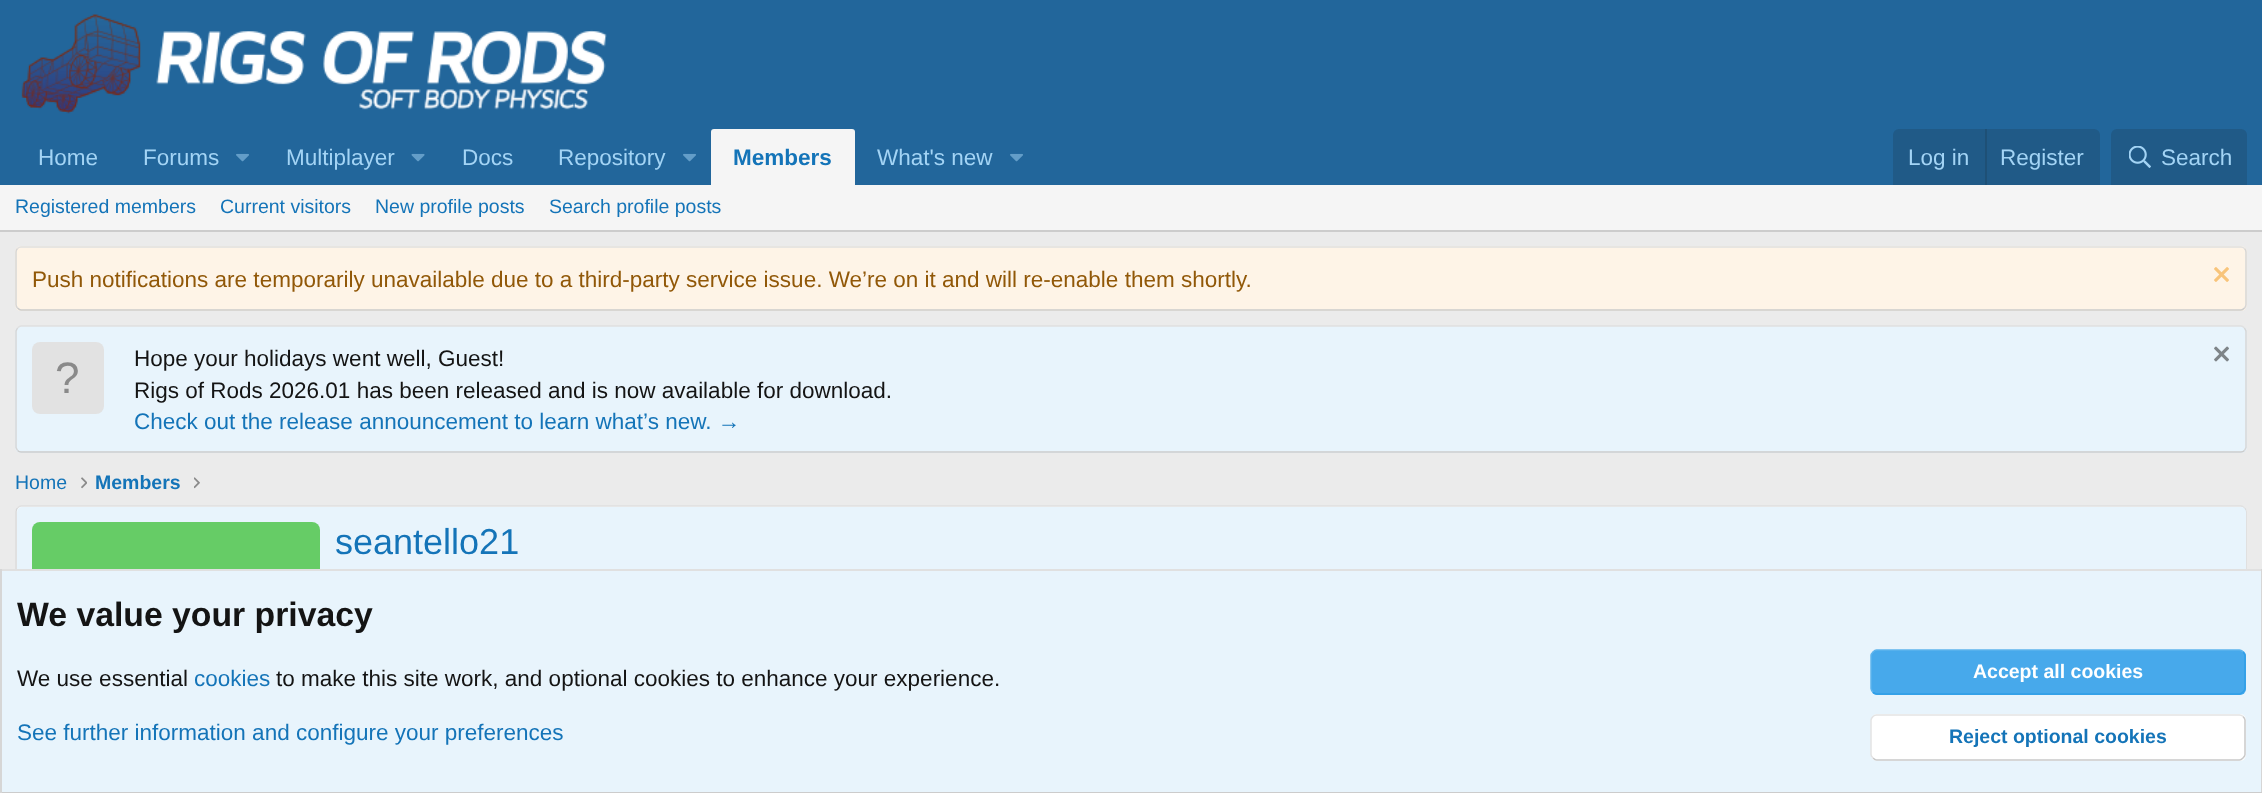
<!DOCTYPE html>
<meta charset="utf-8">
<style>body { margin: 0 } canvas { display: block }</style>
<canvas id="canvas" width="2262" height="793"></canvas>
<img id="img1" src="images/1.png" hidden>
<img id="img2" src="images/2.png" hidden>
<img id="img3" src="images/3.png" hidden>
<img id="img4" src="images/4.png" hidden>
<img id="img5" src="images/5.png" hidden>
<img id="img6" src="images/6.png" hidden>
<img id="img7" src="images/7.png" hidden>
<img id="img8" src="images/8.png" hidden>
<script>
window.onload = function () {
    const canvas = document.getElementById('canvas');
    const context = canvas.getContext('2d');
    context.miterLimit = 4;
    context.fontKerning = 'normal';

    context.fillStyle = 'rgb(235, 235, 235)';
    context.fillRect(0, 0, 2262, 793);
    context.fillStyle = 'rgb(34, 102, 155)';
    context.fillRect(0, 0, 2262, 185);
    context.drawImage(document.getElementById('img1'), 21, 14, 586, 100);
    context.drawImage(document.getElementById('img2'), 236, 153, 13, 9);
    context.drawImage(document.getElementById('img3'), 411, 153, 14, 9);
    context.drawImage(document.getElementById('img2'), 683, 153, 13, 9);
    context.fillStyle = 'rgb(245, 245, 245)';
    context.beginPath();
    context.roundRect(711, 129, 144, 56, [3, 3, 0, 0]);
    context.fill();
    context.drawImage(document.getElementById('img2'), 1010, 153, 13, 9);
    context.fillStyle = 'rgb(32, 90, 135)';
    context.beginPath();
    context.roundRect(1893, 129, 207, 56, [6, 6, 0, 0]);
    context.fill();
    context.fillStyle = 'rgb(30, 80, 118)';
    context.fillRect(1985, 129, 2, 56);
    context.fillStyle = 'rgb(32, 90, 135)';
    context.beginPath();
    context.roundRect(2111, 129, 136, 56, [6, 6, 0, 0]);
    context.fill();
    context.drawImage(document.getElementById('img4'), 2129, 146, 22, 22);
    context.fillStyle = 'rgb(245, 245, 245)';
    context.fillRect(0, 185, 2262, 45);
    context.fillStyle = 'rgb(204, 204, 204)';
    context.fillRect(0, 230, 2262, 2);
    context.fillStyle = 'rgb(254, 244, 231)';
    context.beginPath();
    context.roundRect(15, 246, 2232, 65, 6);
    context.fill();
    context.beginPath();
    context.moveTo(17.5, 248.5);
    context.bezierCurveTo(18.5, 247.5, 19.5, 247, 21, 247);
    context.lineTo(2241, 247);
    context.bezierCurveTo(2242.5, 247, 2243.5, 247.5, 2244.5, 248.5);
    context.strokeStyle = 'rgb(224, 224, 224)';
    context.lineWidth = 1.5;
    context.stroke();
    context.beginPath();
    context.moveTo(2244.5, 248.5);
    context.bezierCurveTo(2245.5, 249.5, 2246, 250.5, 2246, 252);
    context.lineTo(2246, 304.5);
    context.bezierCurveTo(2246, 306, 2245.5, 307, 2244.5, 308);
    context.strokeStyle = 'rgb(214, 214, 214)';
    context.stroke();
    context.beginPath();
    context.moveTo(2244.5, 308);
    context.bezierCurveTo(2243.5, 309, 2242.5, 310, 2241, 310);
    context.lineTo(21, 310);
    context.bezierCurveTo(19.5, 310, 18.5, 309, 17.5, 308);
    context.strokeStyle = 'rgb(204, 204, 204)';
    context.stroke();
    context.beginPath();
    context.moveTo(17.5, 308);
    context.bezierCurveTo(16.5, 307, 16, 306, 16, 304.5);
    context.lineTo(16, 252);
    context.bezierCurveTo(16, 250.5, 16.5, 249.5, 17.5, 248.5);
    context.strokeStyle = 'rgb(214, 214, 214)';
    context.stroke();
    context.drawImage(document.getElementById('img5'), 2214, 267, 15, 15);
    context.fillStyle = 'rgb(232, 244, 252)';
    context.beginPath();
    context.roundRect(15, 326, 2232, 127, 6);
    context.fill();
    context.beginPath();
    context.moveTo(17.5, 328);
    context.bezierCurveTo(18.5, 327, 19.5, 326, 21, 326);
    context.lineTo(2241, 326);
    context.bezierCurveTo(2242.5, 326, 2243.5, 327, 2244.5, 328);
    context.strokeStyle = 'rgb(224, 224, 224)';
    context.stroke();
    context.beginPath();
    context.moveTo(2244.5, 328);
    context.lineTo(2246, 331);
    context.lineTo(2246, 447.5);
    context.lineTo(2244.5, 450.5);
    context.strokeStyle = 'rgb(214, 214, 214)';
    context.stroke();
    context.beginPath();
    context.moveTo(2244.5, 450.5);
    context.bezierCurveTo(2243.5, 451.5, 2242.5, 452, 2241, 452);
    context.lineTo(21, 452);
    context.bezierCurveTo(19.5, 452, 18.5, 451.5, 17.5, 450.5);
    context.strokeStyle = 'rgb(204, 204, 204)';
    context.stroke();
    context.beginPath();
    context.moveTo(17.5, 450.5);
    context.lineTo(16, 447.5);
    context.lineTo(16, 331);
    context.lineTo(17.5, 328);
    context.strokeStyle = 'rgb(214, 214, 214)';
    context.stroke();
    context.fillStyle = 'rgb(226, 226, 226)';
    context.beginPath();
    context.roundRect(32, 342, 72, 72, 8);
    context.fill();
    context.drawImage(document.getElementById('img6'), 2214, 346, 15, 16);
    context.drawImage(document.getElementById('img7'), 81, 477, 6, 12);
    context.drawImage(document.getElementById('img8'), 194, 477, 6, 12);
    context.fillStyle = 'rgb(255, 255, 255)';
    context.beginPath();
    context.roundRect(15, 506, 2232, 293, 6);
    context.fill();
    context.beginPath();
    context.moveTo(17.5, 508);
    context.bezierCurveTo(18.5, 507, 19.5, 506, 21, 506);
    context.lineTo(2241, 506);
    context.bezierCurveTo(2242.5, 506, 2243.5, 507, 2244.5, 508);
    context.strokeStyle = 'rgb(224, 224, 224)';
    context.stroke();
    context.beginPath();
    context.moveTo(2244.5, 508);
    context.bezierCurveTo(2245.5, 509, 2246, 510, 2246, 511.5);
    context.lineTo(2246, 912);
    context.bezierCurveTo(2246, 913.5, 2245.5, 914.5, 2244.5, 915.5);
    context.strokeStyle = 'rgb(214, 214, 214)';
    context.stroke();
    context.beginPath();
    context.moveTo(17.5, 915.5);
    context.bezierCurveTo(16.5, 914.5, 16, 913.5, 16, 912);
    context.lineTo(16, 511.5);
    context.bezierCurveTo(16, 510, 16.5, 509, 17.5, 508);
    context.stroke();
    context.fillStyle = 'rgb(232, 244, 252)';
    context.beginPath();
    context.roundRect(17, 507, 2229, 185, [5, 5, 0, 0]);
    context.fill();
    context.fillStyle = 'rgb(102, 204, 102)';
    context.beginPath();
    context.roundRect(32, 522, 288, 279, 8);
    context.fill();
    context.fillStyle = 'rgb(232, 244, 252)';
    context.fillRect(2, 571, 2259, 221);
    context.fillStyle = 'rgb(224, 224, 224)';
    context.fillRect(0, 569, 2262, 2);
    context.fillStyle = 'rgb(214, 214, 214)';
    context.fillRect(2261, 569, 1, 224);
    context.fillStyle = 'rgb(204, 204, 204)';
    context.fillRect(0, 792, 2262, 1);
    context.fillStyle = 'rgb(214, 214, 214)';
    context.fillRect(0, 569, 2, 224);
    context.fillStyle = 'rgb(71, 169, 235)';
    context.beginPath();
    context.roundRect(1871, 650, 375, 45, 6);
    context.fill();
    context.beginPath();
    context.moveTo(2243, 652);
    context.bezierCurveTo(2244, 653, 2245, 654, 2245, 655.5);
    context.lineTo(2245, 688.5);
    context.bezierCurveTo(2245, 690, 2244, 691, 2243, 692);
    context.bezierCurveTo(2242, 693, 2241, 694, 2239.5, 694);
    context.lineTo(1876.5, 694);
    context.bezierCurveTo(1875, 694, 1874, 693, 1873, 692);
    context.strokeStyle = 'rgb(48, 159, 232)';
    context.stroke();
    context.beginPath();
    context.moveTo(1873, 692);
    context.bezierCurveTo(1872, 691, 1871, 690, 1871, 688.5);
    context.lineTo(1871, 655.5);
    context.bezierCurveTo(1871, 654, 1872, 653, 1873, 652);
    context.bezierCurveTo(1874, 651, 1875, 650, 1876.5, 650);
    context.lineTo(2239.5, 650);
    context.bezierCurveTo(2241, 650, 2242, 651, 2243, 652);
    context.strokeStyle = 'rgb(94, 180, 237)';
    context.stroke();
    context.fillStyle = 'rgb(255, 255, 255)';
    context.beginPath();
    context.roundRect(1871, 714, 375, 47, 6);
    context.fill();
    context.beginPath();
    context.moveTo(2243, 716.5);
    context.bezierCurveTo(2244, 717.5, 2245, 718.5, 2245, 720);
    context.lineTo(2245, 754.5);
    context.bezierCurveTo(2245, 756, 2244, 757, 2243, 758);
    context.bezierCurveTo(2242, 759, 2241, 760, 2239.5, 760);
    context.lineTo(1876.5, 760);
    context.bezierCurveTo(1875, 760, 1874, 759, 1873, 758);
    context.strokeStyle = 'rgb(201, 201, 201)';
    context.stroke();
    context.beginPath();
    context.moveTo(1873, 758);
    context.bezierCurveTo(1872, 757, 1871, 756, 1871, 754.5);
    context.lineTo(1871, 720);
    context.bezierCurveTo(1871, 718.5, 1872, 717.5, 1873, 716.5);
    context.bezierCurveTo(1874, 715.5, 1875, 715, 1876.5, 715);
    context.lineTo(2239.5, 715);
    context.bezierCurveTo(2241, 715, 2242, 715.5, 2243, 716.5);
    context.strokeStyle = 'rgb(227, 227, 227)';
    context.stroke();
    context.font = '22.5px Liberation Sans';
    context.fillStyle = 'rgb(163, 212, 245)';
    context.fillText('Home', 38, 165);
    context.fillText('Forums', 143, 165);
    context.fillText('Multiplayer', 286, 165);
    context.fillText('Docs', 462, 165);
    context.fillText('Repository', 558, 165);
    context.font = 'bold 22.5px Liberation Sans';
    context.fillStyle = 'rgb(20, 116, 184)';
    context.fillText('Members', 733, 165);
    context.font = '22.5px Liberation Sans';
    context.fillStyle = 'rgb(163, 212, 245)';
    context.fillText('What\'s new', 877, 165);
    context.fillText('Log in', 1908, 165);
    context.fillText('Register', 2000, 165);
    context.fillText('Search', 2161, 165);
    context.font = '19.5px Liberation Sans';
    context.fillStyle = 'rgb(20, 116, 184)';
    context.fillText('Registered members', 15, 213);
    context.fillText('Current visitors', 220, 213);
    context.fillText('New profile posts', 375, 213);
    context.fillText('Search profile posts', 549, 213);
    context.font = '22.5px Liberation Sans';
    context.fillStyle = 'rgb(145, 88, 8)';
    context.fillText('Push notifications are temporarily unavailable due to a third-party service issue. We’re on it and will re-enable them shortly.', 32, 287);
    context.font = '44px Liberation Sans';
    context.fillStyle = 'rgb(138, 138, 138)';
    context.fillText('?', 55, 393);
    context.font = '22.5px Liberation Sans';
    context.fillStyle = 'rgb(20, 20, 20)';
    context.fillText('Hope your holidays went well, Guest!', 134, 366);
    context.fillText('Rigs of Rods 2026.01 has been released and is now available for download.', 134, 398);
    context.fillStyle = 'rgb(20, 116, 184)';
    context.fillText('Check out the release announcement to learn what’s new. →', 134, 429);
    context.font = '19.5px Liberation Sans';
    context.fillText('Home', 15, 489);
    context.font = 'bold 19.5px Liberation Sans';
    context.fillText('Members', 95, 489);
    context.font = '36px Liberation Sans';
    context.fillText('seantello21', 335, 554);
    context.font = 'bold 33.75px Liberation Sans';
    context.fillStyle = 'rgb(20, 20, 20)';
    context.fillText('We value your privacy', 17, 626);
    context.font = '22.5px Liberation Sans';
    context.fillText('We use essential', 17, 686);
    context.fillStyle = 'rgb(20, 116, 184)';
    context.fillText('cookies', 194, 686);
    context.fillStyle = 'rgb(20, 20, 20)';
    context.fillText('to make this site work, and optional cookies to enhance your experience.', 276, 686);
    context.fillStyle = 'rgb(20, 116, 184)';
    context.fillText('See further information and configure your preferences', 17, 740);
    context.font = 'bold 19.5px Liberation Sans';
    context.fillStyle = 'rgb(255, 255, 255)';
    context.fillText('Accept all cookies', 1973, 678);
    context.fillStyle = 'rgb(20, 116, 184)';
    context.fillText('Reject optional cookies', 1949, 743);
};
</script>
